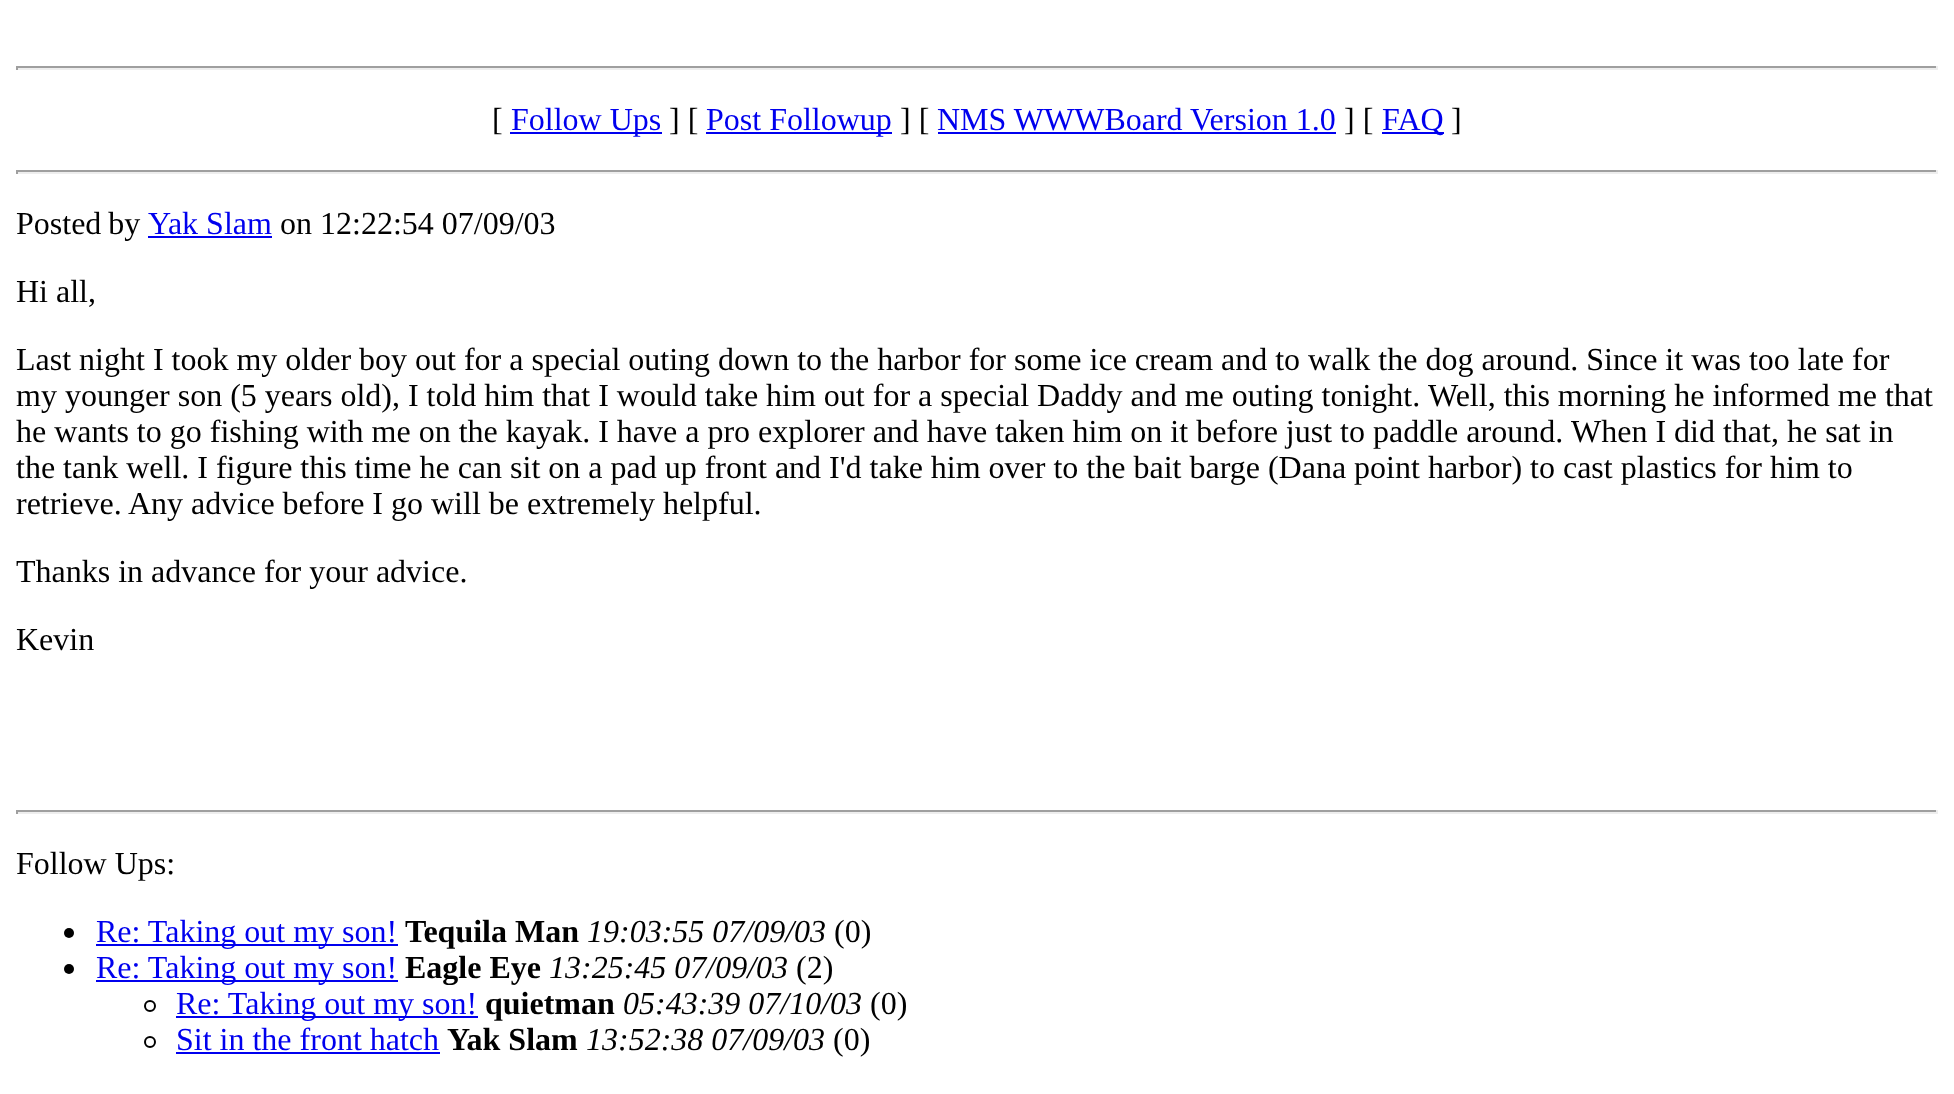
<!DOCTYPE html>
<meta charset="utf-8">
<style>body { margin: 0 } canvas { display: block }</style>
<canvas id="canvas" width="1954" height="1094"></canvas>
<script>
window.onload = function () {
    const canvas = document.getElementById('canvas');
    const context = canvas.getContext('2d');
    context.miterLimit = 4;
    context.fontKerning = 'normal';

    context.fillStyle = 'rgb(255, 255, 255)';
    context.fillRect(0, 0, 1954, 1094);
    context.fillStyle = 'rgb(159, 159, 159)';
    context.fillRect(16, 66, 1922, 2);
    context.fillStyle = 'rgb(238, 238, 238)';
    context.fillRect(1936, 66, 2, 4);
    context.fillRect(16, 68, 1922, 2);
    context.fillStyle = 'rgb(159, 159, 159)';
    context.fillRect(16, 66, 2, 4);
    context.fillStyle = 'rgb(0, 0, 238)';
    context.fillRect(510, 132, 152, 2);
    context.fillRect(706, 132, 186, 2);
    context.fillRect(938, 132, 398, 2);
    context.fillRect(1382, 132, 62, 2);
    context.fillStyle = 'rgb(159, 159, 159)';
    context.fillRect(16, 170, 1922, 2);
    context.fillStyle = 'rgb(238, 238, 238)';
    context.fillRect(1936, 170, 2, 4);
    context.fillRect(16, 172, 1922, 2);
    context.fillStyle = 'rgb(159, 159, 159)';
    context.fillRect(16, 170, 2, 4);
    context.fillStyle = 'rgb(0, 0, 238)';
    context.fillRect(148, 236, 124, 2);
    context.fillStyle = 'rgb(159, 159, 159)';
    context.fillRect(16, 810, 1922, 2);
    context.fillStyle = 'rgb(238, 238, 238)';
    context.fillRect(1936, 810, 2, 4);
    context.fillRect(16, 812, 1922, 2);
    context.fillStyle = 'rgb(159, 159, 159)';
    context.fillRect(16, 810, 2, 4);
    context.fillStyle = 'rgb(0, 0, 0)';
    context.beginPath();
    context.arc(69, 933, 5, 0, 2 * Math.PI);
    context.fill();
    context.fillStyle = 'rgb(0, 0, 238)';
    context.fillRect(96, 944, 302, 2);
    context.fillStyle = 'rgb(0, 0, 0)';
    context.beginPath();
    context.arc(69, 969, 5, 0, 2 * Math.PI);
    context.fill();
    context.fillStyle = 'rgb(0, 0, 238)';
    context.fillRect(96, 980, 302, 2);
    context.beginPath();
    context.arc(150, 1006, 5, 0, 2 * Math.PI);
    context.strokeStyle = 'rgb(0, 0, 0)';
    context.lineWidth = 2;
    context.stroke();
    context.fillRect(176, 1016, 302, 2);
    context.beginPath();
    context.arc(150, 1042, 5, 0, 2 * Math.PI);
    context.stroke();
    context.fillRect(176, 1052, 264, 2);
    context.font = '32px Liberation Serif';
    context.fillStyle = 'rgb(0, 0, 0)';
    context.fillText('[', 492, 130);
    context.fillStyle = 'rgb(0, 0, 238)';
    context.fillText('Follow Ups', 511, 130);
    context.fillStyle = 'rgb(0, 0, 0)';
    context.fillText('] [', 669, 130);
    context.fillStyle = 'rgb(0, 0, 238)';
    context.fillText('Post Followup', 706, 130);
    context.fillStyle = 'rgb(0, 0, 0)';
    context.fillText('] [', 900, 130);
    context.fillStyle = 'rgb(0, 0, 238)';
    context.fillText('NMS WWWBoard Version 1.0', 937, 130);
    context.fillStyle = 'rgb(0, 0, 0)';
    context.fillText('] [', 1344, 130);
    context.fillStyle = 'rgb(0, 0, 238)';
    context.fillText('FAQ', 1382, 130);
    context.fillStyle = 'rgb(0, 0, 0)';
    context.fillText(']', 1451, 130);
    context.wordSpacing = '-1px';
    context.fillText('Posted by', 16, 234);
    context.wordSpacing = '0px';
    context.fillStyle = 'rgb(0, 0, 238)';
    context.fillText('Yak Slam', 148, 234);
    context.fillStyle = 'rgb(0, 0, 0)';
    context.fillText('on 12:22:54 07/09/03', 280, 234);
    context.fillText('Hi all,', 16, 302);
    context.fillText('Last night I took my older boy out for a special outing down to the harbor for some ice cream and to walk the dog around. Since it was too late for', 16, 370);
    context.fillText('my younger son (5 years old), I told him that I would take him out for a special Daddy and me outing tonight.', 16, 406);
    context.fillText('Well, this morning he informed me that', 1428, 406);
    context.fillText('he wants to go fishing with me on the kayak. I have a pro explorer and have taken him on it before just to paddle around.', 16, 442);
    context.fillText('When I did that, he sat in', 1571, 442);
    context.fillText('the tank well. I figure this time he can sit on a pad up front and I\'d take him over to the bait barge (Dana point harbor) to cast plastics for him to', 16, 478);
    context.fillText('retrieve.', 16, 514);
    context.fillText('Any advice before I go will be extremely helpful.', 128, 514);
    context.fillText('Thanks in advance for your advice.', 16, 582);
    context.fillText('Kevin', 16, 650);
    context.fillText('Follow Ups:', 16, 874);
    context.fillStyle = 'rgb(0, 0, 238)';
    context.fillText('Re: Taking out my son!', 96, 942);
    context.font = 'bold 32px Liberation Serif';
    context.fillStyle = 'rgb(0, 0, 0)';
    context.fillText('Tequila Man', 405, 942);
    context.font = 'italic 32px Liberation Serif';
    context.fillText('19:03:55 07/09/03', 587, 942);
    context.font = '32px Liberation Serif';
    context.fillText('(0)', 834, 942);
    context.fillStyle = 'rgb(0, 0, 238)';
    context.fillText('Re: Taking out my son!', 96, 978);
    context.font = 'bold 32px Liberation Serif';
    context.fillStyle = 'rgb(0, 0, 0)';
    context.fillText('Eagle Eye', 405, 978);
    context.font = 'italic 32px Liberation Serif';
    context.fillText('13:25:45 07/09/03', 549, 978);
    context.font = '32px Liberation Serif';
    context.fillText('(2)', 796, 978);
    context.fillStyle = 'rgb(0, 0, 238)';
    context.fillText('Re: Taking out my son!', 176, 1014);
    context.font = 'bold 32px Liberation Serif';
    context.fillStyle = 'rgb(0, 0, 0)';
    context.fillText('quietman', 485, 1014);
    context.font = 'italic 32px Liberation Serif';
    context.fillText('05:43:39 07/10/03', 623, 1014);
    context.font = '32px Liberation Serif';
    context.fillText('(0)', 870, 1014);
    context.fillStyle = 'rgb(0, 0, 238)';
    context.fillText('Sit in the front hatch', 176, 1050);
    context.font = 'bold 32px Liberation Serif';
    context.fillStyle = 'rgb(0, 0, 0)';
    context.fillText('Yak Slam', 447, 1050);
    context.font = 'italic 32px Liberation Serif';
    context.fillText('13:52:38 07/09/03', 586, 1050);
    context.font = '32px Liberation Serif';
    context.fillText('(0)', 833, 1050);
};
</script>
